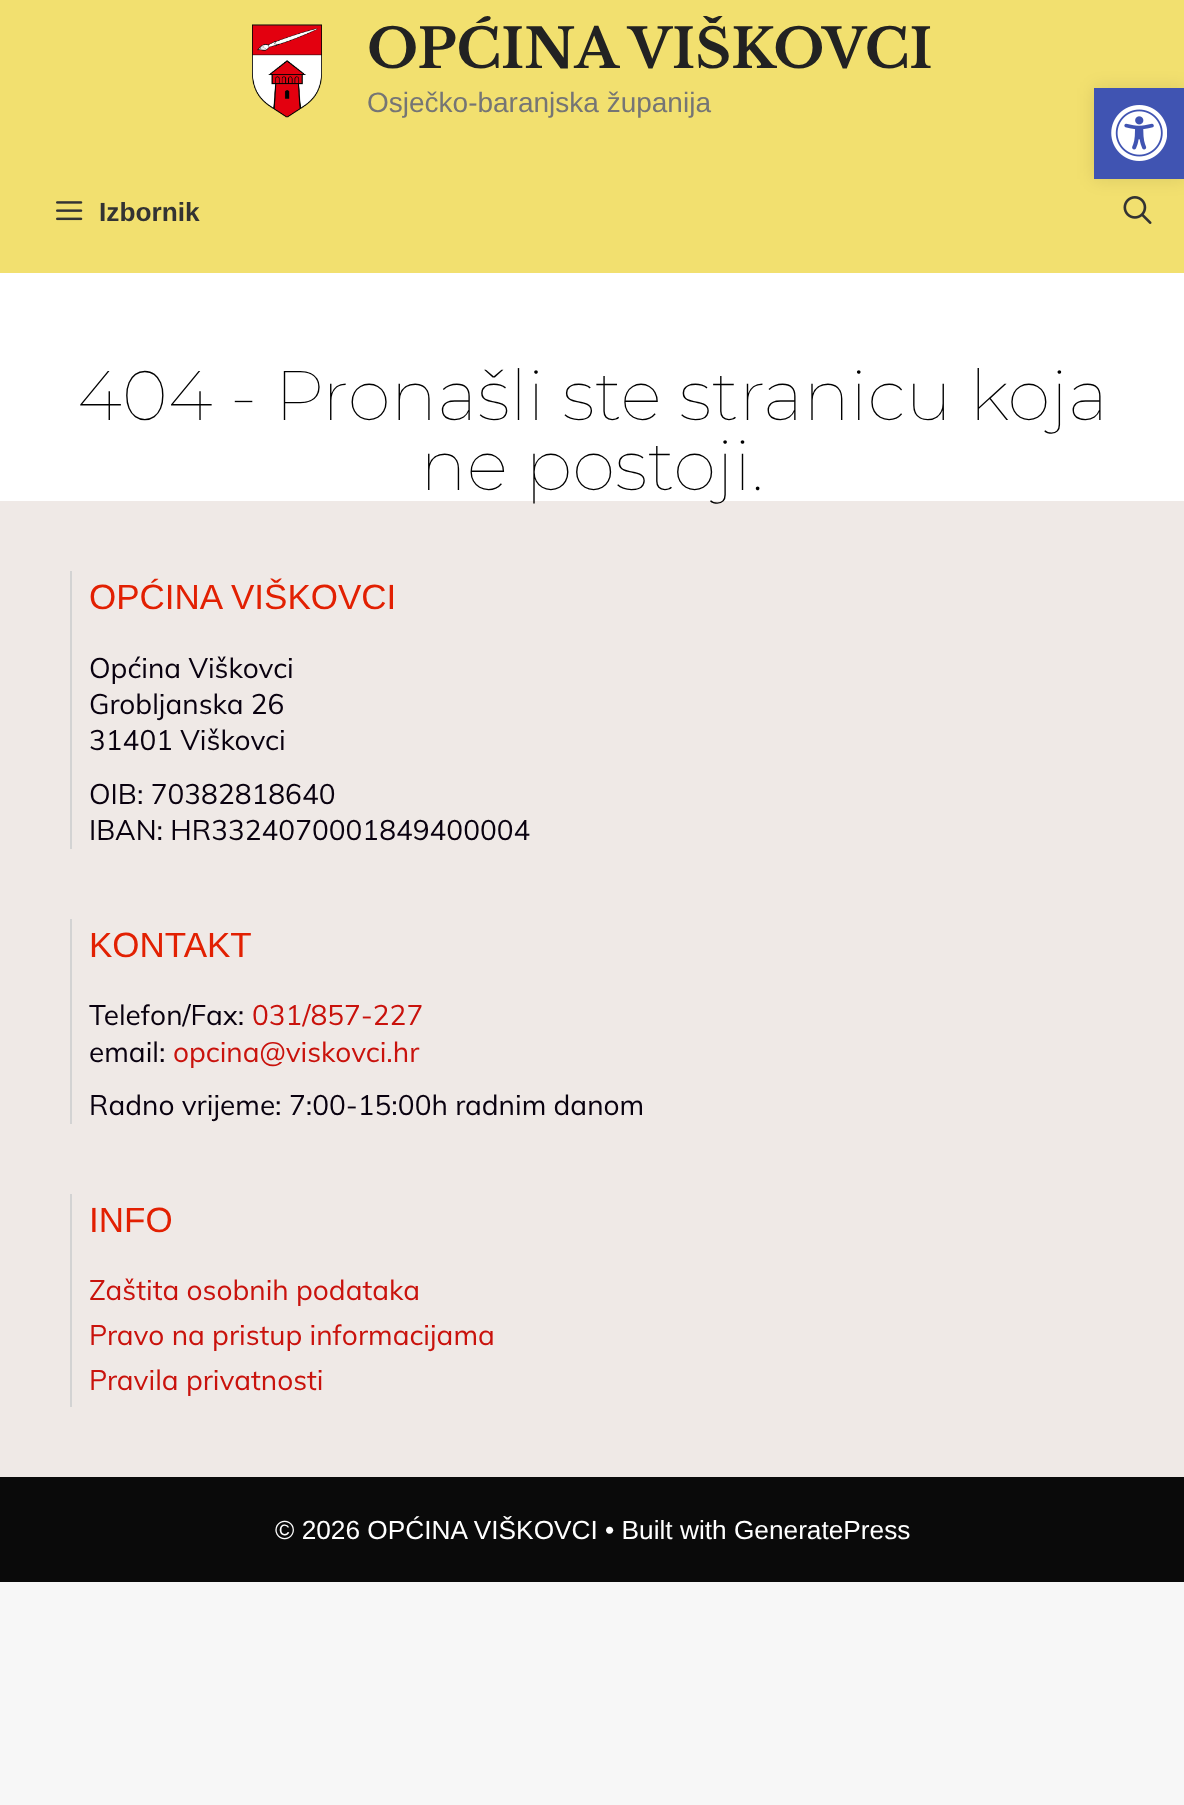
<!DOCTYPE html>
<meta charset="utf-8">
<style>body { margin: 0 } canvas { display: block }</style>
<canvas id="canvas" width="1184" height="1805"></canvas>
<img id="img1" src="images/1.png" hidden>
<img id="img2" src="images/2.png" hidden>
<img id="img3" src="images/3.png" hidden>
<img id="img4" src="images/4.png" hidden>
<script>
window.onload = function () {
    const canvas = document.getElementById('canvas');
    const context = canvas.getContext('2d');
    context.miterLimit = 4;
    context.fontKerning = 'normal';

    context.fillStyle = 'rgb(247, 247, 247)';
    context.fillRect(0, 0, 1184, 1805);
    context.fillStyle = 'rgb(242, 224, 111)';
    context.fillRect(0, 0, 1184, 273);
    context.drawImage(document.getElementById('img1'), 252, 24, 70, 94);
    context.drawImage(document.getElementById('img2'), 56, 201, 27, 20);
    context.drawImage(document.getElementById('img3'), 1123, 196, 29, 28);
    context.fillStyle = 'rgba(0, 0, 0, 0.1)';
    context.filter = 'blur(9px)';
    context.beginPath();
    context.rect(1094, 88, 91, 91);
    context.fill();
    context.filter = 'none';
    context.fillStyle = 'rgb(64, 84, 178)';
    context.fillRect(1094, 88, 90, 91);
    context.drawImage(document.getElementById('img4'), 1111, 105, 56, 56);
    context.fillStyle = 'rgb(255, 255, 255)';
    context.fillRect(0, 273, 1184, 228);
    context.fillStyle = 'rgb(239, 233, 230)';
    context.fillRect(0, 501, 1184, 976);
    context.fillStyle = 'rgb(211, 211, 211)';
    context.fillRect(70, 571, 2, 278);
    context.fillRect(70, 919, 2, 205);
    context.fillRect(70, 1194, 2, 213);
    context.fillStyle = 'rgb(10, 10, 10)';
    context.fillRect(0, 1477, 1184, 105);
    context.font = 'bold 54.25px Libre Baskerville';
    context.fillStyle = 'rgb(34, 34, 34)';
    context.fillText('OPĆINA VIŠKOVCI', 367, 68);
    context.font = '28px Liberation Sans';
    context.fillStyle = 'rgb(117, 117, 117)';
    context.fillText('Osječko-baranjska županija', 367, 112);
    context.font = 'bold 26.25px Liberation Sans';
    context.fillStyle = 'rgb(51, 51, 51)';
    context.fillText('Izbornik', 99, 221);
    context.font = '100 70px Montserrat';
    context.fillStyle = 'rgb(0, 0, 0)';
    context.fillText('404 - Pronašli ste stranicu koja', 77, 420);
    context.fillText('ne postoji.', 420, 490);
    context.font = '35px Liberation Sans';
    context.fillStyle = 'rgb(226, 32, 2)';
    context.fillText('OPĆINA VIŠKOVCI', 89, 609);
    context.font = '28px Muli';
    context.fillStyle = 'rgb(9, 1, 15)';
    context.fillText('Općina Viškovci', 89, 678);
    context.fillText('Grobljanska 26', 89, 714);
    context.fillText('31401 Viškovci', 89, 750);
    context.fillText('OIB: 70382818640', 89, 804);
    context.fillText('IBAN: HR3324070001849400004', 89, 840);
    context.font = '35px Liberation Sans';
    context.fillStyle = 'rgb(226, 32, 2)';
    context.fillText('KONTAKT', 89, 957);
    context.font = '28px Muli';
    context.fillStyle = 'rgb(9, 1, 15)';
    context.fillText('Telefon/Fax:', 89, 1025);
    context.fillStyle = 'rgb(201, 18, 12)';
    context.fillText('031/857-227', 252, 1025);
    context.fillStyle = 'rgb(9, 1, 15)';
    context.fillText('email:', 89, 1062);
    context.fillStyle = 'rgb(201, 18, 12)';
    context.fillText('opcina@viskovci.hr', 173, 1062);
    context.fillStyle = 'rgb(9, 1, 15)';
    context.fillText('Radno vrijeme: 7:00-15:00h radnim danom', 89, 1115);
    context.font = '35px Liberation Sans';
    context.fillStyle = 'rgb(226, 32, 2)';
    context.fillText('INFO', 89, 1232);
    context.font = '28px Muli';
    context.fillStyle = 'rgb(201, 18, 12)';
    context.fillText('Zaštita osobnih podataka', 89, 1300);
    context.fillText('Pravo na pristup informacijama', 89, 1345);
    context.fillText('Pravila privatnosti', 89, 1390);
    context.font = '26.25px Liberation Sans';
    context.fillStyle = 'rgb(255, 255, 255)';
    context.fillText('© 2026 OPĆINA VIŠKOVCI • Built with GeneratePress', 275, 1539);
};
</script>
